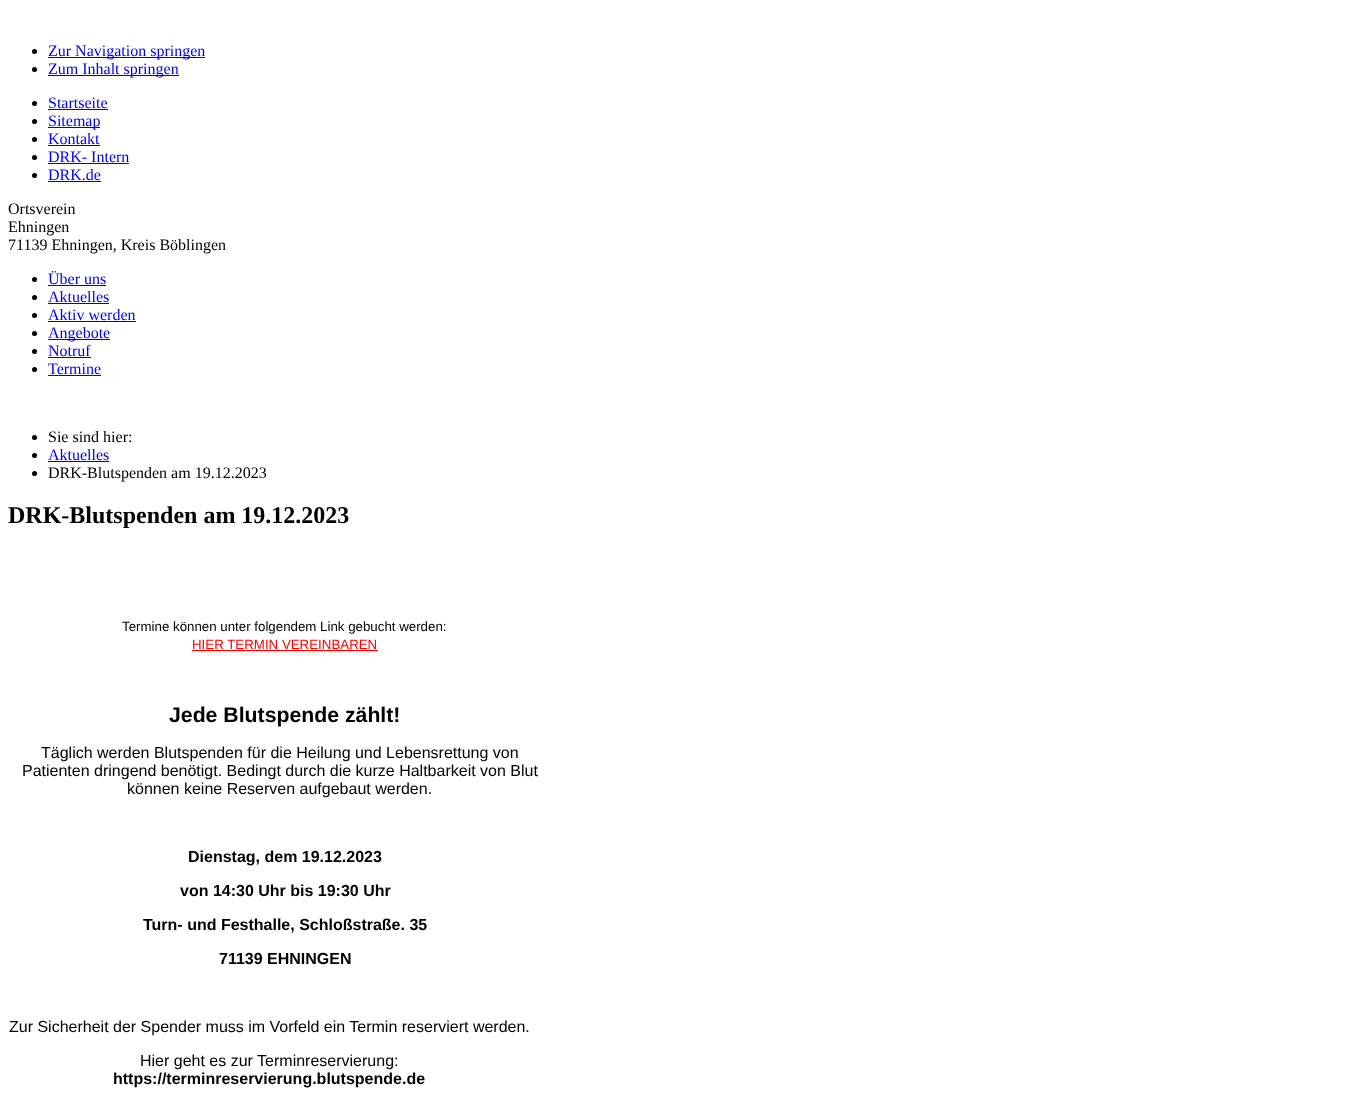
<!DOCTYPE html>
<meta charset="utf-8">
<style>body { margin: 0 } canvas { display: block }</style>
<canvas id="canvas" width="1354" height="1117"></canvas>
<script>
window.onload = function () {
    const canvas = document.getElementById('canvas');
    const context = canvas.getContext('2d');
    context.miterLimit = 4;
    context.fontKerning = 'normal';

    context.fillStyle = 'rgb(255, 255, 255)';
    context.fillRect(0, 0, 1354, 1117);
    context.fillStyle = 'rgb(0, 0, 0)';
    context.beginPath();
    context.arc(34.5, 51.5, 2.5, 0, 2 * Math.PI);
    context.fill();
    context.fillStyle = 'rgb(0, 0, 238)';
    context.fillRect(48, 57, 157, 1);
    context.fillStyle = 'rgb(0, 0, 0)';
    context.beginPath();
    context.arc(34.5, 69.5, 2.5, 0, 2 * Math.PI);
    context.fill();
    context.fillStyle = 'rgb(0, 0, 238)';
    context.fillRect(48, 75, 131, 1);
    context.fillStyle = 'rgb(0, 0, 0)';
    context.beginPath();
    context.arc(34.5, 103.5, 2.5, 0, 2 * Math.PI);
    context.fill();
    context.fillStyle = 'rgb(0, 0, 238)';
    context.fillRect(48, 109, 60, 1);
    context.fillStyle = 'rgb(0, 0, 0)';
    context.beginPath();
    context.arc(34.5, 121.5, 2.5, 0, 2 * Math.PI);
    context.fill();
    context.fillStyle = 'rgb(0, 0, 238)';
    context.fillRect(48, 127, 52, 1);
    context.fillStyle = 'rgb(0, 0, 0)';
    context.beginPath();
    context.arc(34.5, 139.5, 2.5, 0, 2 * Math.PI);
    context.fill();
    context.fillStyle = 'rgb(0, 0, 238)';
    context.fillRect(48, 145, 52, 1);
    context.fillStyle = 'rgb(0, 0, 0)';
    context.beginPath();
    context.arc(34.5, 157.5, 2.5, 0, 2 * Math.PI);
    context.fill();
    context.fillStyle = 'rgb(0, 0, 238)';
    context.fillRect(48, 163, 81, 1);
    context.fillStyle = 'rgb(0, 0, 0)';
    context.beginPath();
    context.arc(34.5, 175.5, 2.5, 0, 2 * Math.PI);
    context.fill();
    context.fillStyle = 'rgb(0, 0, 238)';
    context.fillRect(48, 181, 53, 1);
    context.fillStyle = 'rgb(0, 0, 0)';
    context.beginPath();
    context.arc(34.5, 279.5, 2.5, 0, 2 * Math.PI);
    context.fill();
    context.fillStyle = 'rgb(0, 0, 238)';
    context.fillRect(48, 285, 58, 1);
    context.fillStyle = 'rgb(0, 0, 0)';
    context.beginPath();
    context.arc(34.5, 297.5, 2.5, 0, 2 * Math.PI);
    context.fill();
    context.fillStyle = 'rgb(0, 0, 238)';
    context.fillRect(48, 303, 61, 1);
    context.fillStyle = 'rgb(0, 0, 0)';
    context.beginPath();
    context.arc(34.5, 315.5, 2.5, 0, 2 * Math.PI);
    context.fill();
    context.fillStyle = 'rgb(0, 0, 238)';
    context.fillRect(48, 321, 88, 1);
    context.fillStyle = 'rgb(0, 0, 0)';
    context.beginPath();
    context.arc(34.5, 333.5, 2.5, 0, 2 * Math.PI);
    context.fill();
    context.fillStyle = 'rgb(0, 0, 238)';
    context.fillRect(48, 339, 62, 1);
    context.fillStyle = 'rgb(0, 0, 0)';
    context.beginPath();
    context.arc(34.5, 351.5, 2.5, 0, 2 * Math.PI);
    context.fill();
    context.fillStyle = 'rgb(0, 0, 238)';
    context.fillRect(48, 357, 43, 1);
    context.fillStyle = 'rgb(0, 0, 0)';
    context.beginPath();
    context.arc(34.5, 369.5, 2.5, 0, 2 * Math.PI);
    context.fill();
    context.fillStyle = 'rgb(0, 0, 238)';
    context.fillRect(48, 375, 53, 1);
    context.fillStyle = 'rgb(0, 0, 0)';
    context.beginPath();
    context.arc(34.5, 437.5, 2.5, 0, 2 * Math.PI);
    context.fill();
    context.beginPath();
    context.arc(34.5, 455.5, 2.5, 0, 2 * Math.PI);
    context.fill();
    context.fillStyle = 'rgb(0, 0, 238)';
    context.fillRect(48, 461, 61, 1);
    context.fillStyle = 'rgb(0, 0, 0)';
    context.beginPath();
    context.arc(34.5, 473.5, 2.5, 0, 2 * Math.PI);
    context.fill();
    context.fillStyle = 'rgb(255, 0, 0)';
    context.fillRect(192, 650, 186, 1);
    context.font = '16px Liberation Serif';
    context.fillStyle = 'rgb(0, 0, 238)';
    context.fillText('Zur Navigation springen', 48, 56);
    context.fillText('Zum Inhalt springen', 48, 74);
    context.fillText('Startseite', 48, 108);
    context.fillText('Sitemap', 48, 126);
    context.fillText('Kontakt', 48, 144);
    context.fillText('DRK- Intern', 48, 162);
    context.fillText('DRK.de', 48, 180);
    context.fillStyle = 'rgb(0, 0, 0)';
    context.fillText('Ortsverein', 8, 214);
    context.fillText('Ehningen', 8, 232);
    context.fillText('71139 Ehningen, Kreis Böblingen', 8, 250);
    context.fillStyle = 'rgb(0, 0, 238)';
    context.fillText('Über uns', 48, 284);
    context.fillText('Aktuelles', 48, 302);
    context.fillText('Aktiv werden', 48, 320);
    context.fillText('Angebote', 48, 338);
    context.fillText('Notruf', 48, 356);
    context.fillText('Termine', 48, 374);
    context.fillStyle = 'rgb(0, 0, 0)';
    context.fillText('Sie sind hier:', 48, 442);
    context.fillStyle = 'rgb(0, 0, 238)';
    context.fillText('Aktuelles', 48, 460);
    context.fillStyle = 'rgb(0, 0, 0)';
    context.fillText('DRK-Blutspenden am 19.12.2023', 48, 478);
    context.font = 'bold 24px Liberation Serif';
    context.fillText('DRK-Blutspenden am 19.12.2023', 8, 523);
    context.font = '13.3px Liberation Sans';
    context.fillText('Termine können unter folgendem Link gebucht werden:', 122, 631);
    context.fillStyle = 'rgb(255, 0, 0)';
    context.fillText('HIER TERMIN VEREINBAREN', 192, 649);
    context.font = 'bold 21.25px Liberation Sans';
    context.fillStyle = 'rgb(0, 0, 0)';
    context.fillText('Jede Blutspende zählt!', 169, 722);
    context.font = '16px Liberation Sans';
    context.fillText('Täglich werden Blutspenden für die Heilung und Lebensrettung von', 41, 758);
    context.fillText('Patienten dringend benötigt. Bedingt durch die kurze Haltbarkeit von Blut', 22, 776);
    context.fillText('können keine Reserven aufgebaut werden.', 127, 794);
    context.font = 'bold 16px Liberation Sans';
    context.fillText('Dienstag, dem 19.12.2023', 188, 862);
    context.fillText('von 14:30 Uhr bis 19:30 Uhr', 180, 896);
    context.fillText('Turn- und Festhalle, Schloßstraße. 35', 143, 930);
    context.fillText('71139 EHNINGEN', 219, 964);
    context.font = '16px Liberation Sans';
    context.fillText('Zur Sicherheit der Spender muss im Vorfeld ein Termin reserviert werden.', 9, 1032);
    context.fillText('Hier geht es zur Terminreservierung:', 140, 1066);
    context.font = 'bold 16px Liberation Sans';
    context.fillText('https://terminreservierung.blutspende.de', 113, 1084);
};
</script>
